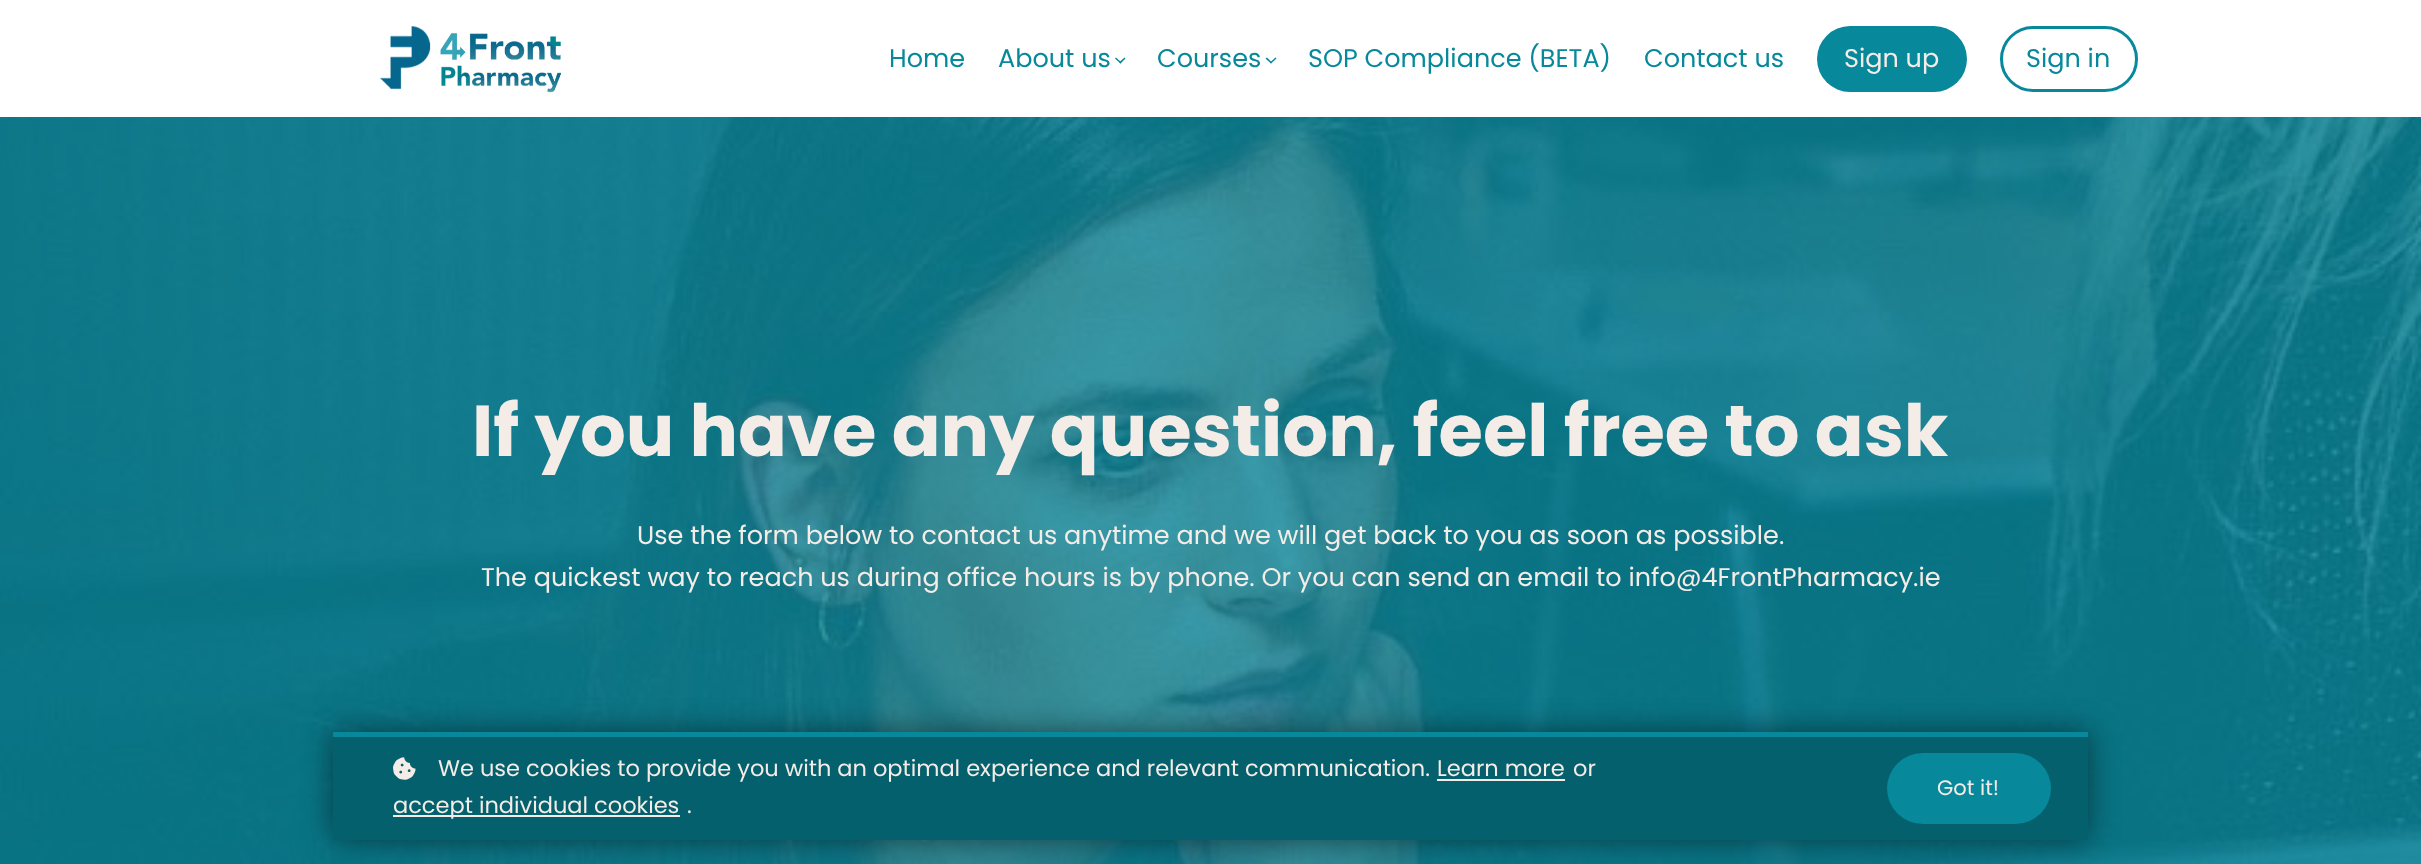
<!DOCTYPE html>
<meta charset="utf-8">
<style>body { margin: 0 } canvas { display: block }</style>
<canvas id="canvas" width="2421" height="864"></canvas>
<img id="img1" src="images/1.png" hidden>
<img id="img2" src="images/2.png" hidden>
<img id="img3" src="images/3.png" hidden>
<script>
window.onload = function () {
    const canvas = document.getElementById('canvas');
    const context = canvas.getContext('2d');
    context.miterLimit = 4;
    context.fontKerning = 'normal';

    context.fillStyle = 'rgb(255, 255, 255)';
    context.fillRect(0, 0, 2421, 864);
    context.drawImage(document.getElementById('img1'), 380, 26, 182, 67);
    context.fillStyle = 'rgb(7, 136, 155)';
    context.beginPath();
    context.moveTo(1125.5, 58.5);
    context.lineTo(1120.5, 63.5);
    context.lineTo(1119, 62.5);
    context.lineTo(1124.5, 57.5);
    context.closePath();
    context.fill();
    context.beginPath();
    context.moveTo(1121.5, 62.5);
    context.lineTo(1120.5, 63.5);
    context.lineTo(1115, 58.5);
    context.lineTo(1116, 57.5);
    context.closePath();
    context.fill();
    context.beginPath();
    context.moveTo(1276.5, 58.5);
    context.lineTo(1271, 63.5);
    context.lineTo(1270, 62.5);
    context.lineTo(1275.5, 57.5);
    context.closePath();
    context.fill();
    context.beginPath();
    context.moveTo(1272, 62.5);
    context.lineTo(1271, 63.5);
    context.lineTo(1265.5, 58.5);
    context.lineTo(1267, 57.5);
    context.closePath();
    context.fill();
    context.beginPath();
    context.roundRect(1817, 26, 150, 66, 33);
    context.fill();
    context.beginPath();
    context.roundRect(2001.5, 27.5, 135, 63, 31.5);
    context.strokeStyle = 'rgb(7, 136, 155)';
    context.lineWidth = 3;
    context.stroke();
    context.drawImage(document.getElementById('img2'), 0, 117, 2421, 747);
    context.fillStyle = 'rgba(0, 0, 0, 0.5)';
    context.filter = 'blur(15px)';
    context.beginPath();
    context.rect(333, 732, 1755, 108);
    context.fill();
    context.filter = 'none';
    context.fillStyle = 'rgb(4, 96, 109)';
    context.fillRect(333, 737, 1755, 103);
    context.fillStyle = 'rgb(7, 136, 155)';
    context.fillRect(333, 732, 1755, 5);
    context.drawImage(document.getElementById('img3'), 393, 757, 23, 23);
    context.fillStyle = 'rgb(244, 236, 231)';
    context.fillRect(1437, 779, 128, 2);
    context.fillRect(393, 815, 287, 2);
    context.fillStyle = 'rgb(7, 136, 155)';
    context.beginPath();
    context.roundRect(1887, 753, 164, 71, 35.5);
    context.fill();
    context.font = '25.5px Poppins';
    context.fillText('Home', 889, 67);
    context.fillText('About us', 998, 67);
    context.fillText('Courses', 1157, 67);
    context.fillText('SOP Compliance (BETA)', 1308, 67);
    context.fillText('Contact us', 1644, 67);
    context.fillStyle = 'rgb(244, 236, 231)';
    context.fillText('Sign up', 1844, 67);
    context.fillStyle = 'rgb(7, 136, 155)';
    context.fillText('Sign in', 2026, 67);
    context.font = 'bold 72px Poppins';
    context.fillStyle = 'rgb(244, 236, 231)';
    context.fillText('If you have any question, feel free to ask', 472, 456);
    context.font = '25.5px Poppins';
    context.fillText('Use the form below to contact us anytime and we will get back to you as soon as possible.', 637, 544);
    context.fillText('The quickest way to reach us during office hours is by phone. Or you can send an email to info@4FrontPharmacy.ie', 481, 586);
    context.font = '22.5px Poppins';
    context.fillText('We use cookies to provide you with an optimal experience and relevant communication.', 438, 776);
    context.fillText('Learn more', 1437, 776);
    context.fillText('or', 1573, 776);
    context.fillText('accept individual cookies', 393, 813);
    context.fillText('.', 687, 813);
    context.font = '21px Poppins';
    context.fillText('Got it!', 1937, 795);
};
</script>
